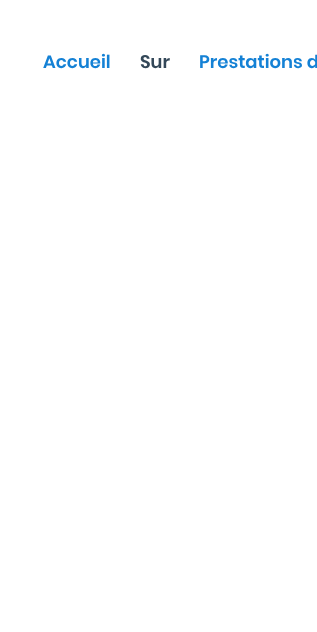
<!DOCTYPE html>
<meta charset="utf-8">
<style>body { margin: 0 } canvas { display: block }</style>
<canvas id="canvas" width="317" height="632"></canvas>
<script>
window.onload = function () {
    const canvas = document.getElementById('canvas');
    const context = canvas.getContext('2d');
    context.miterLimit = 4;
    context.fontKerning = 'normal';

    context.fillStyle = 'rgb(255, 255, 255)';
    context.fillRect(0, 0, 317, 632);
    context.font = '600 18px Poppins';
    context.fillStyle = 'rgb(20, 129, 213)';
    context.fillText('Accueil', 43, 68);
    context.fillStyle = 'rgb(51, 71, 88)';
    context.fillText('Sur', 140, 68);
    context.fillStyle = 'rgb(20, 129, 213)';
    context.fillText('Prestations d', 199, 68);
};
</script>
